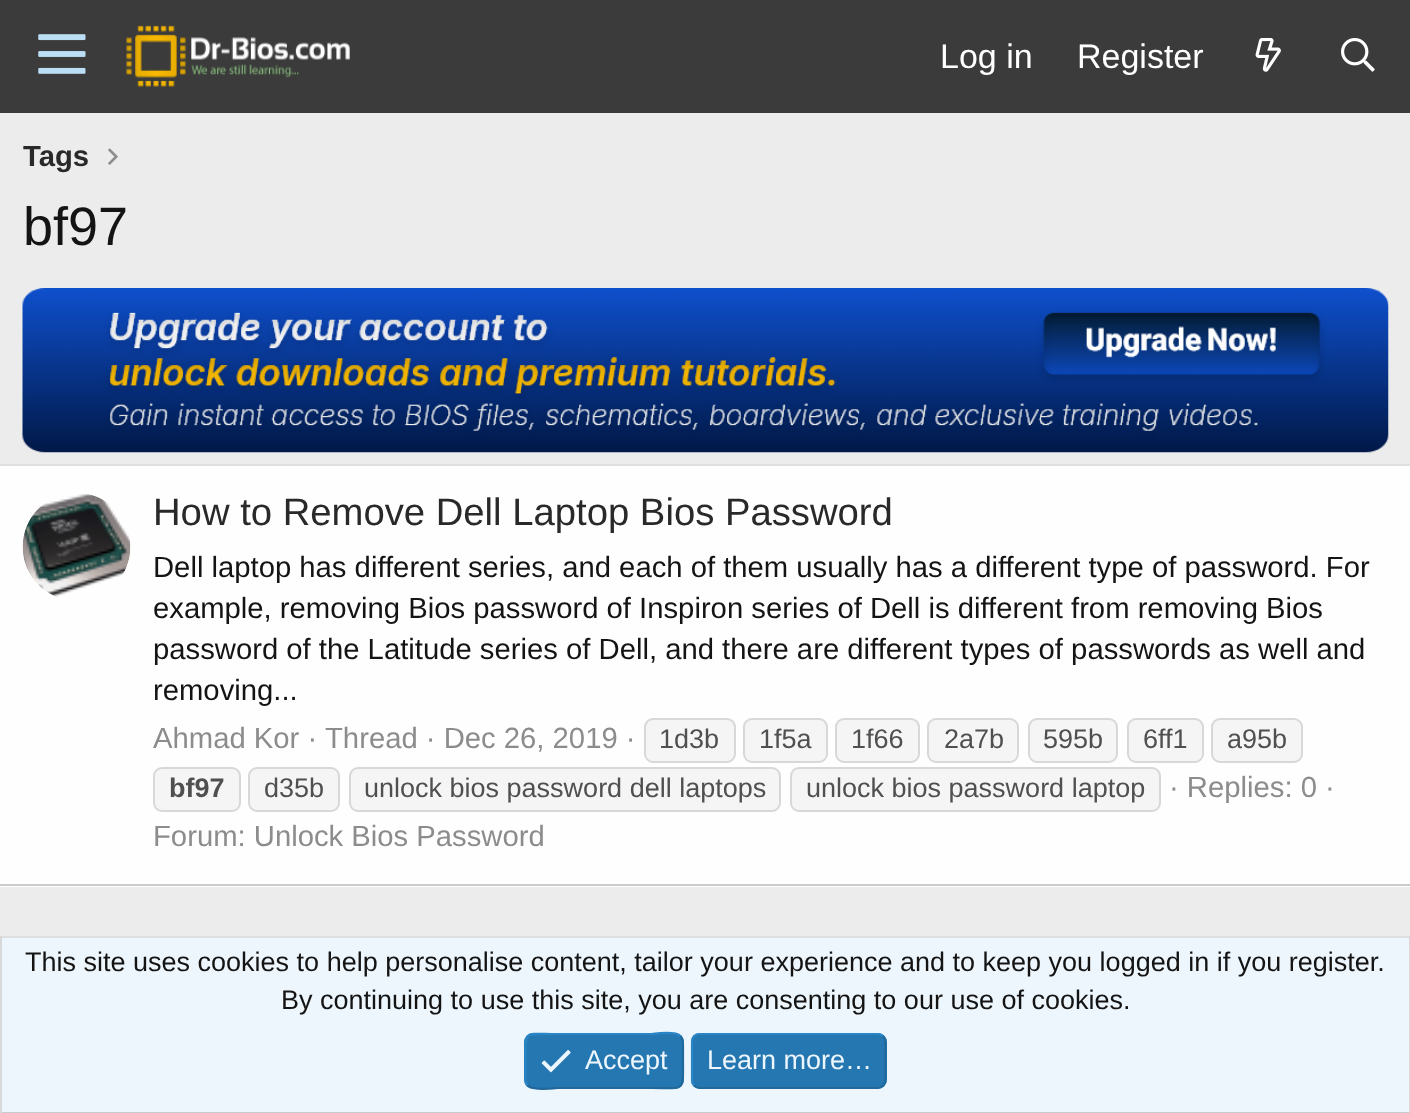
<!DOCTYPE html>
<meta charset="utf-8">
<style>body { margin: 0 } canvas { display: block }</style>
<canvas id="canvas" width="1410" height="1113"></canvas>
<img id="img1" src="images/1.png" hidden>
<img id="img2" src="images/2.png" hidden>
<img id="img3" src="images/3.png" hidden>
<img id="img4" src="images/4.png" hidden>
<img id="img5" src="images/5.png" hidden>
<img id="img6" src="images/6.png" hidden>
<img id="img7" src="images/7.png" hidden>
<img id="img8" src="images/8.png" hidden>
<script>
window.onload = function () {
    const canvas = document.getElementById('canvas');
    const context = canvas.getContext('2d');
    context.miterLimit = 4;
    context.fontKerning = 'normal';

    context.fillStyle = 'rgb(236, 236, 236)';
    context.fillRect(0, 0, 1410, 1113);
    context.fillStyle = 'rgb(59, 59, 59)';
    context.fillRect(0, 0, 1410, 113);
    context.drawImage(document.getElementById('img1'), 38, 34, 48, 40);
    context.drawImage(document.getElementById('img2'), 126, 25, 224, 62);
    context.drawImage(document.getElementById('img3'), 1255, 38, 26, 34);
    context.drawImage(document.getElementById('img4'), 1341, 38, 34, 34);
    context.drawImage(document.getElementById('img5'), 108, 148, 10, 17);
    context.drawImage(document.getElementById('img6'), 22, 288, 1367, 165);
    context.fillStyle = 'rgb(254, 254, 254)';
    context.fillRect(0, 466, 1410, 421);
    context.fillStyle = 'rgb(223, 223, 223)';
    context.fillRect(0, 464, 1410, 2);
    context.fillStyle = 'rgb(203, 203, 203)';
    context.fillRect(0, 884, 1410, 2);
    context.drawImage(document.getElementById('img7'), 22, 494, 109, 103);
    context.fillStyle = 'rgb(245, 245, 245)';
    context.beginPath();
    context.roundRect(645, 719, 90, 43, 8);
    context.fill();
    context.strokeStyle = 'rgb(216, 216, 216)';
    context.lineWidth = 2;
    context.stroke();
    context.beginPath();
    context.roundRect(744, 719, 83, 43, 8);
    context.fill();
    context.stroke();
    context.beginPath();
    context.roundRect(836, 719, 83, 43, 8);
    context.fill();
    context.stroke();
    context.beginPath();
    context.roundRect(928, 719, 90, 43, 8);
    context.fill();
    context.stroke();
    context.beginPath();
    context.roundRect(1029, 719, 88, 43, 8);
    context.fill();
    context.stroke();
    context.beginPath();
    context.roundRect(1128, 719, 75, 43, 8);
    context.fill();
    context.stroke();
    context.beginPath();
    context.roundRect(1212, 719, 90, 43, 8);
    context.fill();
    context.stroke();
    context.beginPath();
    context.roundRect(154, 768, 86, 43, 8);
    context.fill();
    context.stroke();
    context.beginPath();
    context.roundRect(249, 768, 90, 43, 8);
    context.fill();
    context.stroke();
    context.beginPath();
    context.roundRect(350, 768, 430, 43, 8);
    context.fill();
    context.stroke();
    context.beginPath();
    context.roundRect(791, 768, 369, 43, 8);
    context.fill();
    context.stroke();
    context.fillStyle = 'rgb(237, 246, 253)';
    context.fillRect(2, 938, 1407, 174);
    context.fillStyle = 'rgb(223, 223, 223)';
    context.fillRect(0, 936, 1410, 2);
    context.fillStyle = 'rgb(216, 216, 216)';
    context.fillRect(1409, 936, 1, 177);
    context.fillStyle = 'rgb(203, 203, 203)';
    context.fillRect(0, 1112, 1410, 1);
    context.fillStyle = 'rgb(216, 216, 216)';
    context.fillRect(0, 936, 2, 177);
    context.fillStyle = 'rgb(37, 119, 177)';
    context.beginPath();
    context.roundRect(524, 1033, 160, 56, 9);
    context.fill();
    context.beginPath();
    context.moveTo(680.5, 1036);
    context.bezierCurveTo(683.5, 1039.5, 683, 1044, 683, 1048);
    context.lineTo(683, 1061);
    context.bezierCurveTo(683, 1092.5, 685.5, 1088, 651.5, 1088);
    context.lineTo(557, 1088);
    context.bezierCurveTo(556, 1088, 533.5, 1091, 527.5, 1085.5);
    context.strokeStyle = 'rgb(33, 105, 156)';
    context.lineWidth = 2.2;
    context.stroke();
    context.beginPath();
    context.moveTo(527.5, 1085.5);
    context.bezierCurveTo(524.5, 1082.5, 525.5, 1077.5, 525.5, 1073.5);
    context.lineTo(525.5, 1061);
    context.bezierCurveTo(525.5, 1029, 522.5, 1034, 557, 1034);
    context.lineTo(651.5, 1034);
    context.bezierCurveTo(652.5, 1034, 675, 1030.5, 680.5, 1036);
    context.strokeStyle = 'rgb(41, 133, 198)';
    context.stroke();
    context.drawImage(document.getElementById('img8'), 541, 1050, 30, 23);
    context.beginPath();
    context.roundRect(691, 1033, 196, 56, 9);
    context.fill();
    context.beginPath();
    context.moveTo(883, 1036);
    context.bezierCurveTo(884.5, 1037.5, 885.5, 1039.5, 885.5, 1042);
    context.lineTo(885.5, 1080);
    context.bezierCurveTo(885.5, 1082, 884.5, 1084, 883, 1085.5);
    context.bezierCurveTo(881.5, 1087, 879.5, 1088, 877.5, 1088);
    context.lineTo(700, 1088);
    context.bezierCurveTo(697.5, 1088, 695.5, 1087, 694, 1085.5);
    context.strokeStyle = 'rgb(33, 105, 156)';
    context.stroke();
    context.beginPath();
    context.moveTo(694, 1085.5);
    context.bezierCurveTo(692.5, 1084, 692, 1082, 692, 1080);
    context.lineTo(692, 1042);
    context.bezierCurveTo(692, 1039.5, 692.5, 1037.5, 694, 1036);
    context.bezierCurveTo(695.5, 1034.5, 697.5, 1034, 700, 1034);
    context.lineTo(877.5, 1034);
    context.bezierCurveTo(879.5, 1034, 881.5, 1034.5, 883, 1036);
    context.strokeStyle = 'rgb(41, 133, 198)';
    context.stroke();
    context.font = '34px Liberation Sans';
    context.fillStyle = 'rgb(255, 255, 255)';
    context.fillText('Log in', 940, 68);
    context.fillText('Register', 1077, 68);
    context.save();
    context.beginPath();
    context.rect(23, 135, 65, 43);
    context.clip();
    context.font = 'bold 29.25px Liberation Sans';
    context.fillStyle = 'rgb(42, 41, 41)';
    context.fillText('Tags', 23, 166);
    context.restore();
    context.font = '54px Liberation Sans';
    context.fillStyle = 'rgb(20, 20, 20)';
    context.fillText('bf97', 23, 245);
    context.font = '38.25px Liberation Sans';
    context.fillStyle = 'rgb(42, 41, 41)';
    context.fillText('How to Remove Dell Laptop Bios Password', 153, 525);
    context.font = '29.25px Liberation Sans';
    context.fillStyle = 'rgb(20, 20, 20)';
    context.fillText('Dell laptop has different series, and each of them usually has a different type of password. For', 153, 577);
    context.fillText('example, removing Bios password of Inspiron series of Dell is different from removing Bios', 153, 618);
    context.fillText('password of the Latitude series of Dell, and there are different types of passwords as well and', 153, 659);
    context.fillText('removing...', 153, 700);
    context.fillStyle = 'rgb(140, 140, 140)';
    context.fillText('Ahmad Kor ·', 153, 748);
    context.fillText('Thread · Dec 26, 2019 ·', 325, 748);
    context.font = '27px Liberation Sans';
    context.fillStyle = 'rgb(80, 80, 80)';
    context.fillText('1d3b', 659, 748);
    context.fillText('1f5a', 759, 748);
    context.fillText('1f66', 851, 748);
    context.fillText('2a7b', 944, 748);
    context.fillText('595b', 1043, 748);
    context.fillText('6ff1', 1143, 748);
    context.fillText('a95b', 1227, 748);
    context.font = 'bold 27px Liberation Sans';
    context.fillText('bf97', 169, 797);
    context.font = '27px Liberation Sans';
    context.fillText('d35b', 264, 797);
    context.fillText('unlock bios password dell laptops', 364, 797);
    context.fillText('unlock bios password laptop', 806, 797);
    context.font = '29.25px Liberation Sans';
    context.fillStyle = 'rgb(140, 140, 140)';
    context.fillText('· Replies: 0 ·', 1169, 797);
    context.fillText('Forum: Unlock Bios Password', 153, 846);
    context.font = '27px Liberation Sans';
    context.fillStyle = 'rgb(20, 20, 20)';
    context.fillText('This site uses cookies to help personalise content, tailor your experience and to keep you logged in if you register.', 25, 971);
    context.fillText('By continuing to use this site, you are consenting to our use of cookies.', 281, 1009);
    context.fillStyle = 'rgb(237, 246, 253)';
    context.fillText('Accept', 585, 1069);
    context.fillText('Learn more…', 707, 1069);
};
</script>
